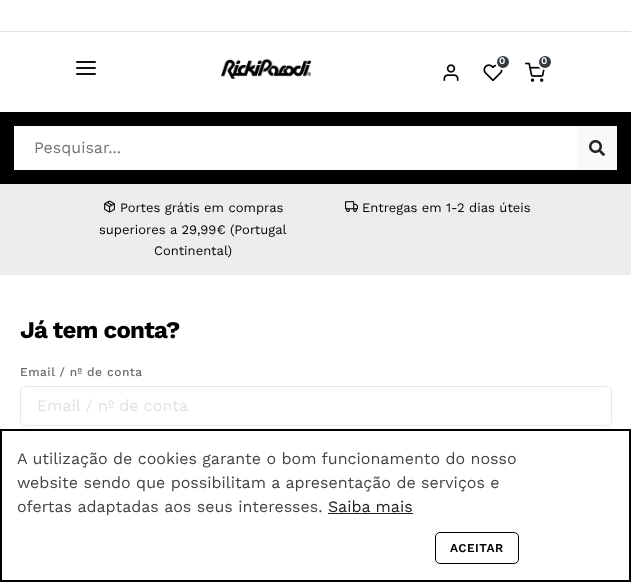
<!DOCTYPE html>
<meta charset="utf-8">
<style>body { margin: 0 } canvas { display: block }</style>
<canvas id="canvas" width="631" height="582"></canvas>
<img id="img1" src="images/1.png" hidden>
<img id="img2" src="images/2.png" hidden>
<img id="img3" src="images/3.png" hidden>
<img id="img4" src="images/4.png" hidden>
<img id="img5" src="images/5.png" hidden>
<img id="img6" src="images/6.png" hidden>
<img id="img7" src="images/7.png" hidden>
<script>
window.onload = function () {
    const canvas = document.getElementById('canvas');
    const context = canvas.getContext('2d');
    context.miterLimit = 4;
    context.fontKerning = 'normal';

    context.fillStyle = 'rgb(255, 255, 255)';
    context.fillRect(0, 0, 631, 582);
    context.fillStyle = 'rgb(225, 224, 224)';
    context.fillRect(0, 31, 631, 1);
    context.fillStyle = 'rgb(17, 17, 17)';
    context.beginPath();
    context.roundRect(76, 67, 20, 2, 1);
    context.fill();
    context.beginPath();
    context.roundRect(76, 61, 20, 2, 1);
    context.fill();
    context.beginPath();
    context.roundRect(76, 73, 20, 2, 1);
    context.fill();
    context.drawImage(document.getElementById('img1'), 221, 59, 90, 20);
    context.drawImage(document.getElementById('img2'), 483, 64, 20, 18);
    context.fillStyle = 'rgb(52, 58, 64)';
    context.beginPath();
    context.arc(503, 62, 7, 0, 2 * Math.PI);
    context.fill();
    context.strokeStyle = 'rgb(255, 255, 255)';
    context.lineWidth = 2;
    context.stroke();
    context.drawImage(document.getElementById('img3'), 525, 62, 20, 20);
    context.beginPath();
    context.arc(545, 62, 7, 0, 2 * Math.PI);
    context.fill();
    context.stroke();
    context.drawImage(document.getElementById('img4'), 443, 64, 16, 17);
    context.fillStyle = 'rgb(0, 0, 0)';
    context.fillRect(0, 112, 631, 72);
    context.fillStyle = 'rgb(255, 255, 255)';
    context.fillRect(14, 126, 563, 44);
    context.fillStyle = 'rgb(248, 249, 250)';
    context.fillRect(577, 126, 40, 44);
    context.drawImage(document.getElementById('img5'), 589, 140, 16, 16);
    context.fillStyle = 'rgb(238, 237, 237)';
    context.fillRect(0, 184, 631, 91);
    context.drawImage(document.getElementById('img6'), 104, 200, 11, 13);
    context.drawImage(document.getElementById('img7'), 345, 201, 14, 11);
    context.beginPath();
    context.roundRect(20.5, 386.5, 591, 39, 4.5);
    context.strokeStyle = 'rgb(230, 232, 235)';
    context.lineWidth = 1;
    context.stroke();
    context.strokeStyle = 'rgb(0, 0, 0)';
    context.lineWidth = 2;
    context.strokeRect(1, 430, 629, 151);
    context.fillStyle = 'rgb(32, 32, 34)';
    context.fillRect(328, 513, 85, 1);
    context.beginPath();
    context.roundRect(435.5, 532.5, 83, 31, 4.5);
    context.lineWidth = 1;
    context.stroke();
    context.font = '600 10px Work Sans';
    context.fillStyle = 'rgb(255, 255, 255)';
    context.fillText('0', 499, 64);
    context.fillText('0', 541, 64);
    context.font = '16px Work Sans';
    context.fillStyle = 'rgb(117, 117, 117)';
    context.fillText('Pesquisar...', 34, 153);
    context.font = '13px Work Sans';
    context.fillStyle = 'rgb(0, 0, 0)';
    context.fillText('Portes grátis em compras', 120, 212);
    context.fillText('superiores a 29,99€ (Portugal', 99, 234);
    context.fillText('Continental)', 154, 255);
    context.fillText('Entregas em 1-2 dias úteis', 362, 212);
    context.letterSpacing = '-0.75px';
    context.font = 'bold 24px Work Sans';
    context.fillText('Já tem conta?', 20, 338);
    context.letterSpacing = '0.5px';
    context.font = '500 12px Work Sans';
    context.fillStyle = 'rgb(108, 108, 108)';
    context.fillText('Email / nº de conta', 20, 376);
    context.letterSpacing = '0px';
    context.font = '16px Work Sans';
    context.fillStyle = 'rgb(229, 223, 223)';
    context.fillText('Email / nº de conta', 37, 411);
    context.fillStyle = 'rgb(68, 68, 68)';
    context.fillText('A utilização de cookies garante o bom funcionamento do nosso', 17, 464);
    context.fillText('website sendo que possibilitam a apresentação de serviços e', 17, 488);
    context.fillText('ofertas adaptadas aos seus interesses.', 17, 512);
    context.fillStyle = 'rgb(32, 32, 34)';
    context.fillText('Saiba mais', 328, 512);
    context.letterSpacing = '0.5px';
    context.font = '600 12px Work Sans';
    context.fillStyle = 'rgb(0, 0, 0)';
    context.fillText('ACEITAR', 450, 552);
};
</script>
